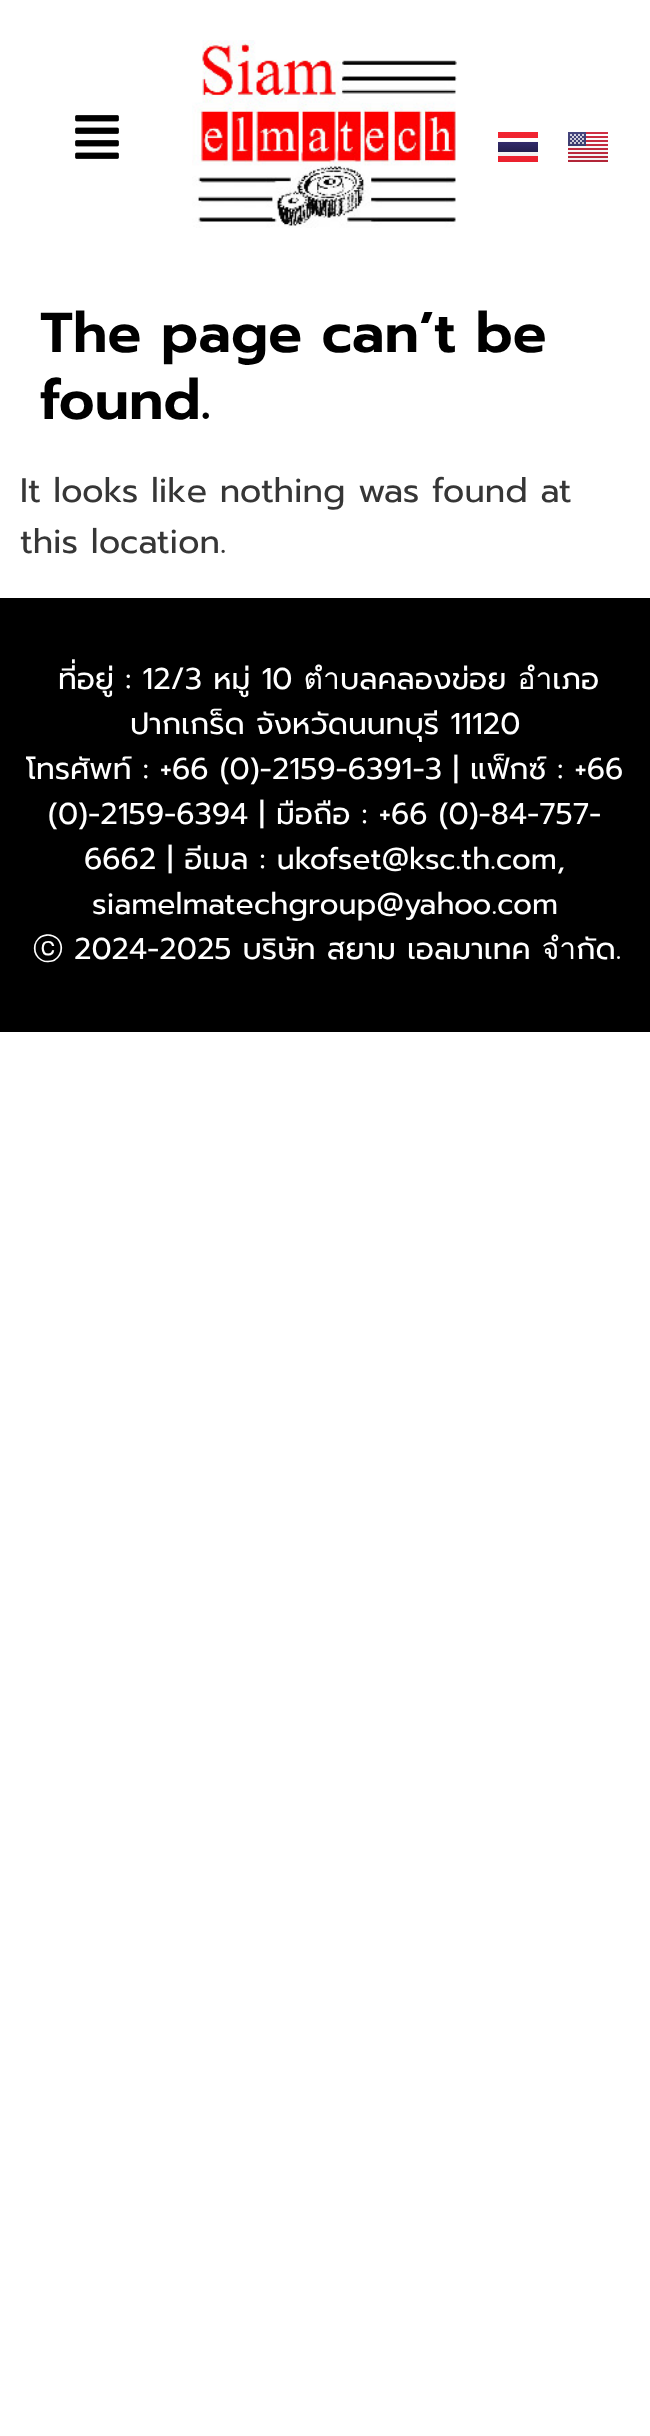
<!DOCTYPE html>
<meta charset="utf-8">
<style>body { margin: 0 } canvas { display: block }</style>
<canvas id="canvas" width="650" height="2436"></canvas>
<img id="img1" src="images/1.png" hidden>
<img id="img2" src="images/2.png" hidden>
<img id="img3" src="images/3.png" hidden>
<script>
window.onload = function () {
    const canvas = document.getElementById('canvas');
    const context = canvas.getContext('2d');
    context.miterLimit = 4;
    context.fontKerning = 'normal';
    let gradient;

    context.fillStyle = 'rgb(255, 255, 255)';
    context.fillRect(0, 0, 650, 2436);
    context.drawImage(document.getElementById('img1'), 75, 115, 44, 44);
    context.drawImage(document.getElementById('img2'), 192, 40, 265, 188);
    context.save();
    context.beginPath();
    context.rect(498, 132, 40, 30);
    context.clip();
    gradient = context.createLinearGradient(517, 132, 517, 162);
    gradient.addColorStop(0, 'rgb(241, 37, 50)');
    gradient.addColorStop(1, 'rgb(235, 33, 46)');
    context.fillStyle = gradient;
    context.beginPath();
    context.moveTo(496, 132);
    context.lineTo(538, 132);
    context.lineTo(538, 138);
    context.lineTo(496, 138);
    context.closePath();
    context.moveTo(496, 156);
    context.lineTo(538, 156);
    context.lineTo(538, 162);
    context.lineTo(496, 162);
    context.closePath();
    context.fill('evenodd');
    context.restore();
    gradient = context.createLinearGradient(517, 138, 517, 156);
    gradient.addColorStop(0, 'rgb(255, 255, 255)');
    gradient.addColorStop(1, 'rgb(240, 240, 240)');
    context.fillStyle = gradient;
    context.fillRect(498, 141, 40, 15);
    gradient = context.createLinearGradient(517, 142, 517, 152);
    gradient.addColorStop(0, 'rgb(50, 43, 108)');
    gradient.addColorStop(1, 'rgb(36, 31, 78)');
    context.fillStyle = gradient;
    context.fillRect(498, 142, 40, 10);
    context.drawImage(document.getElementById('img3'), 568, 132, 40, 30);
    context.fillStyle = 'rgb(0, 0, 0)';
    context.fillRect(0, 598, 650, 434);
    context.font = '600 56px Prompt';
    context.fillText('The page can’t be', 40, 352);
    context.fillText('found.', 40, 419);
    context.font = '34px Prompt';
    context.fillStyle = 'rgb(54, 54, 54)';
    context.fillText('It looks like nothing was found at', 20, 502);
    context.fillText('this location.', 20, 553);
    context.font = '30px Prompt';
    context.fillStyle = 'rgb(255, 255, 255)';
    context.fillText('ที่อยู่ : 12/3 หมู่ 10 ตำบลคลองข่อย อำเภอ', 58, 689);
    context.fillText('ปากเกร็ด จังหวัดนนทบุรี 11120', 130, 734);
    context.fillText('โทรศัพท์ : +66 (0)-2159-6391-3 | แฟ็กซ์ : +66', 26, 779);
    context.fillText('(0)-2159-6394 | มือถือ : +66 (0)-84-757-', 48, 824);
    context.fillText('6662 | อีเมล : ukofset@ksc.th.com,', 84, 869);
    context.fillText('siamelmatechgroup@yahoo.com', 92, 914);
    context.font = '500 30px WenQuanYi Zen Hei';
    context.fillText('ⓒ', 33, 959);
    context.font = '30px Prompt';
    context.fillText('2024-2025 บริษัท สยาม เอลมาเทค จำกัด.', 74, 959);
};
</script>
